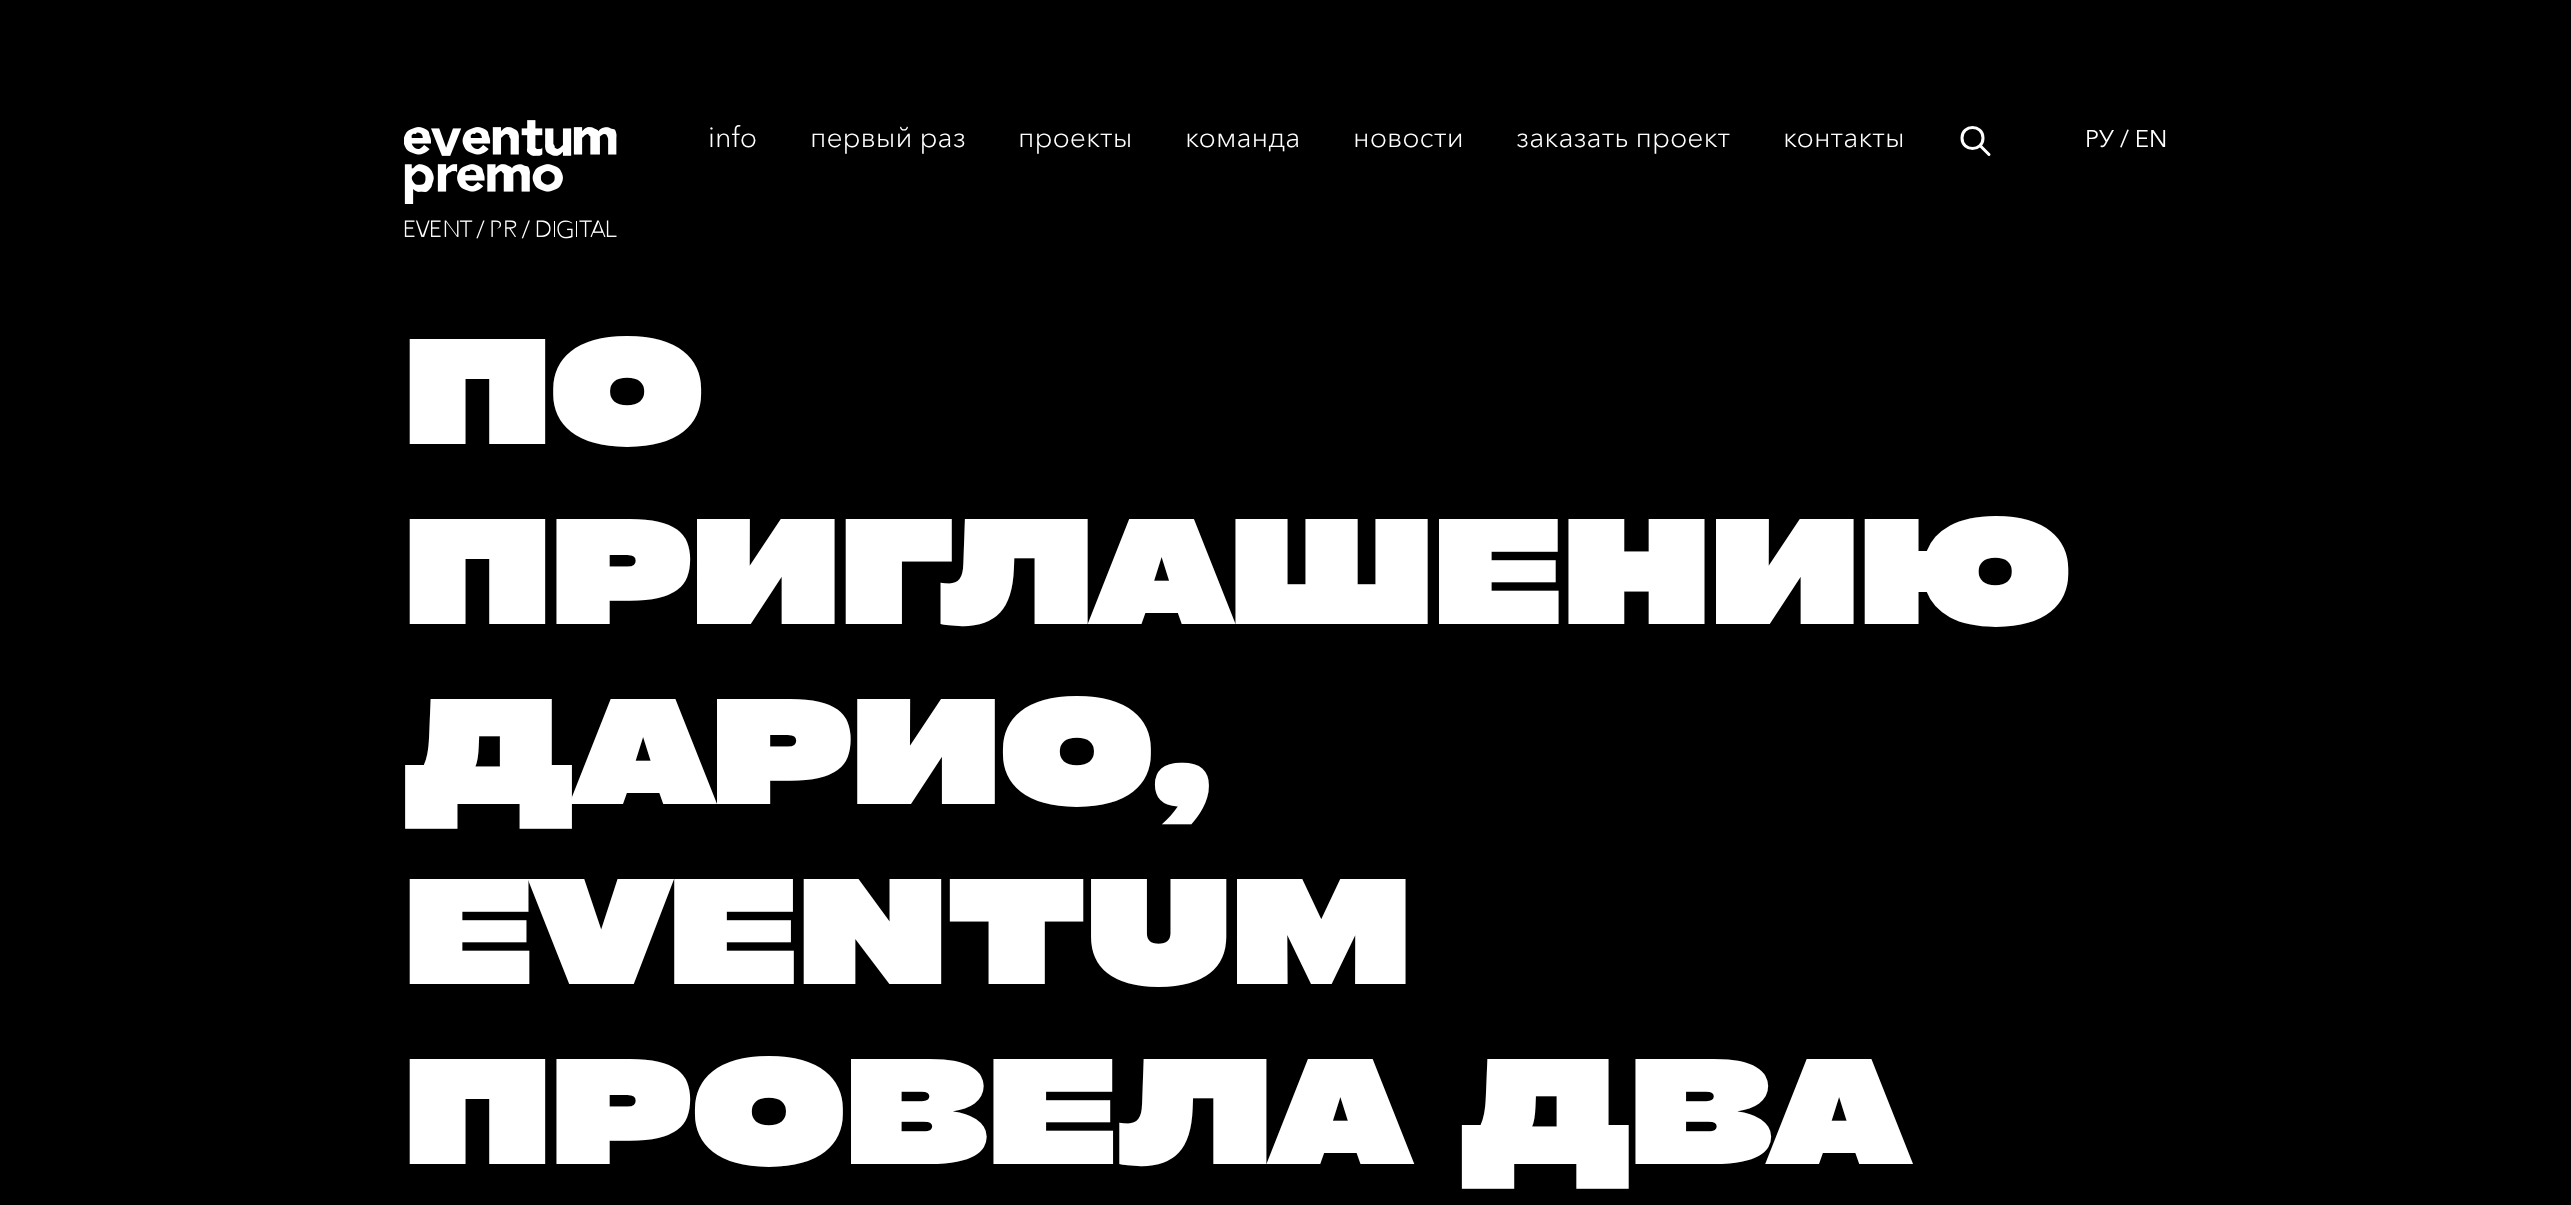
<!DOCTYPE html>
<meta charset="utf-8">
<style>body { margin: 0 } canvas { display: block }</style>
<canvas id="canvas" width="2571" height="1205"></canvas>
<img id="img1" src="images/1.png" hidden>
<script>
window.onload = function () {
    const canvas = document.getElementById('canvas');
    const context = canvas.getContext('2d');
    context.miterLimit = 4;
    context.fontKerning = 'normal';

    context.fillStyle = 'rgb(0, 0, 0)';
    context.fillRect(0, 0, 2571, 1205);
    context.drawImage(document.getElementById('img1'), 404, 120, 213, 119);
    context.beginPath();
    context.moveTo(1962, 138);
    context.bezierCurveTo(1962, 152, 1983, 152, 1983, 138);
    context.bezierCurveTo(1983, 124, 1962, 124, 1962, 138);
    context.moveTo(1989, 154.5);
    context.lineTo(1980, 145.5);
    context.strokeStyle = 'rgb(255, 255, 255)';
    context.lineWidth = 3;
    context.lineCap = 'round';
    context.lineJoin = 'round';
    context.stroke();
    context.font = '300 28.5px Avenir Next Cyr';
    context.fillStyle = 'rgb(255, 255, 255)';
    context.fillText('info', 708, 147);
    context.fillText('первый раз', 810, 147);
    context.fillText('проекты', 1018, 147);
    context.fillText('команда', 1185, 147);
    context.fillText('новости', 1353, 147);
    context.fillText('заказать проект', 1516, 147);
    context.fillText('контакты', 1783, 147);
    context.font = '24px Avenir Next Cyr';
    context.fillText('РУ / EN', 2085, 147);
    context.font = '800 144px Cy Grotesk';
    context.fillText('ПО', 404, 444);
    context.fillText('ПРИГЛАШЕНИЮ', 404, 624);
    context.fillText('ДАРИО,', 404, 804);
    context.fillText('EVENTUM', 404, 984);
    context.fillText('ПРОВЕЛА ДВА', 404, 1164);
};
</script>
